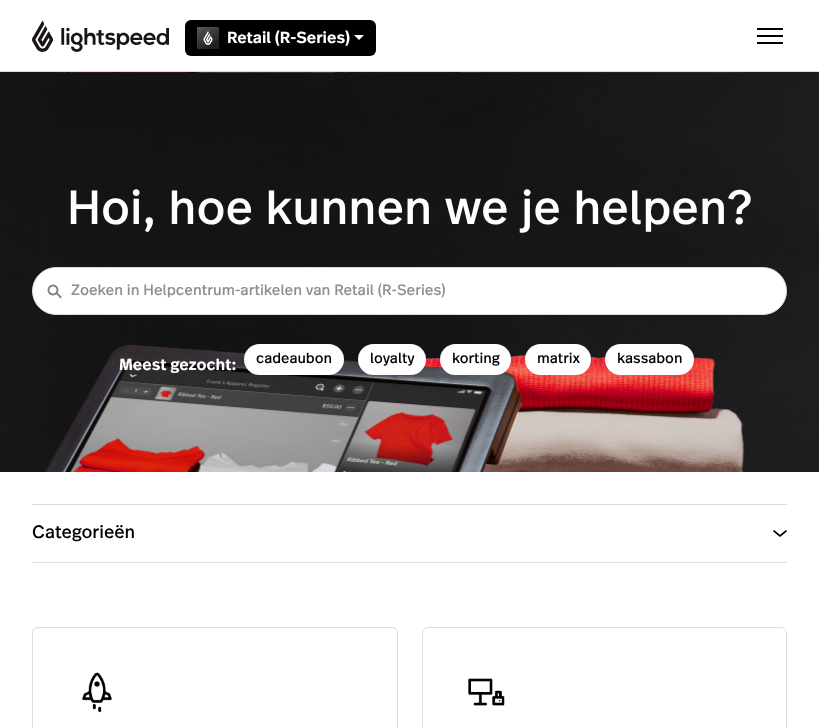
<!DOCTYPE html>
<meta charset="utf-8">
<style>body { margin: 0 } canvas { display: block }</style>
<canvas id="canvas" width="819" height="728"></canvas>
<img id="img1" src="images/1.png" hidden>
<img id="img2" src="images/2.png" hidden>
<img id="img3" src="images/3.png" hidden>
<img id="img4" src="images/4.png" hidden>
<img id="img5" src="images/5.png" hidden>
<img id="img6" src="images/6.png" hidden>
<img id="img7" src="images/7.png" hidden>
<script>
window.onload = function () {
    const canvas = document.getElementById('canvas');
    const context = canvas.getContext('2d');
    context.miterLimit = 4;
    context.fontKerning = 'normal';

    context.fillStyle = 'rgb(255, 255, 255)';
    context.fillRect(0, 0, 819, 728);
    context.fillStyle = 'rgb(221, 221, 221)';
    context.fillRect(0, 71, 819, 1);
    context.drawImage(document.getElementById('img1'), 32, 20, 137, 32);
    context.fillStyle = 'rgb(0, 0, 0)';
    context.beginPath();
    context.roundRect(185, 20, 191, 36, 6);
    context.fill();
    context.drawImage(document.getElementById('img2'), 197, 27, 22, 22);
    context.fillStyle = 'rgb(255, 255, 255)';
    context.beginPath();
    context.moveTo(354, 35);
    context.lineTo(359, 40);
    context.lineTo(364, 35);
    context.closePath();
    context.fill();
    context.fillStyle = 'rgb(0, 0, 0)';
    context.fillRect(757, 35, 26, 2);
    context.fillRect(757, 28, 26, 2);
    context.fillRect(757, 42, 26, 2);
    context.drawImage(document.getElementById('img3'), 0, 72, 819, 400);
    context.fillStyle = 'rgb(255, 255, 255)';
    context.beginPath();
    context.roundRect(32.5, 267.5, 754, 47, 23.5);
    context.fill();
    context.strokeStyle = 'rgb(221, 221, 221)';
    context.stroke();
    context.drawImage(document.getElementById('img4'), 47, 284, 15, 15);
    context.beginPath();
    context.roundRect(244, 344, 100, 31, 15.5);
    context.fill();
    context.beginPath();
    context.roundRect(358, 344, 68, 31, 15.5);
    context.fill();
    context.beginPath();
    context.roundRect(440, 344, 71, 31, 15.5);
    context.fill();
    context.beginPath();
    context.roundRect(525, 344, 66, 31, 15.5);
    context.fill();
    context.beginPath();
    context.roundRect(605, 344, 89, 31, 15.5);
    context.fill();
    context.fillStyle = 'rgb(221, 221, 221)';
    context.fillRect(32, 504, 755, 1);
    context.fillRect(32, 562, 755, 1);
    context.drawImage(document.getElementById('img5'), 773, 530, 14, 7);
    context.beginPath();
    context.roundRect(32.5, 627.5, 365, 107, 5.5);
    context.stroke();
    context.drawImage(document.getElementById('img6'), 82, 672, 30, 41);
    context.beginPath();
    context.roundRect(422.5, 627.5, 364, 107, 5.5);
    context.stroke();
    context.drawImage(document.getElementById('img7'), 468, 678, 37, 28);
    context.font = '600 16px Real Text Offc';
    context.fillStyle = 'rgb(255, 255, 255)';
    context.fillText('Retail (R-Series)', 227, 43);
    context.font = '48px Real Text Offc';
    context.fillText('Hoi, hoe kunnen we je helpen?', 67, 224);
    context.font = '15px Real Text Offc';
    context.fillStyle = 'rgb(142, 142, 142)';
    context.fillText('Zoeken in Helpcentrum-artikelen van Retail (R-Series)', 71, 295);
    context.font = '600 16px Real Text Offc';
    context.fillStyle = 'rgb(255, 255, 255)';
    context.fillText('Meest gezocht:', 119, 370);
    context.font = '14.5px Real Text Offc';
    context.fillStyle = 'rgb(0, 0, 0)';
    context.fillText('cadeaubon', 256, 363);
    context.fillText('loyalty', 370, 363);
    context.fillText('korting', 452, 363);
    context.fillText('matrix', 537, 363);
    context.fillText('kassabon', 617, 363);
    context.font = '18px Real Text Offc';
    context.fillText('Categorieën', 32, 538);
};
</script>
